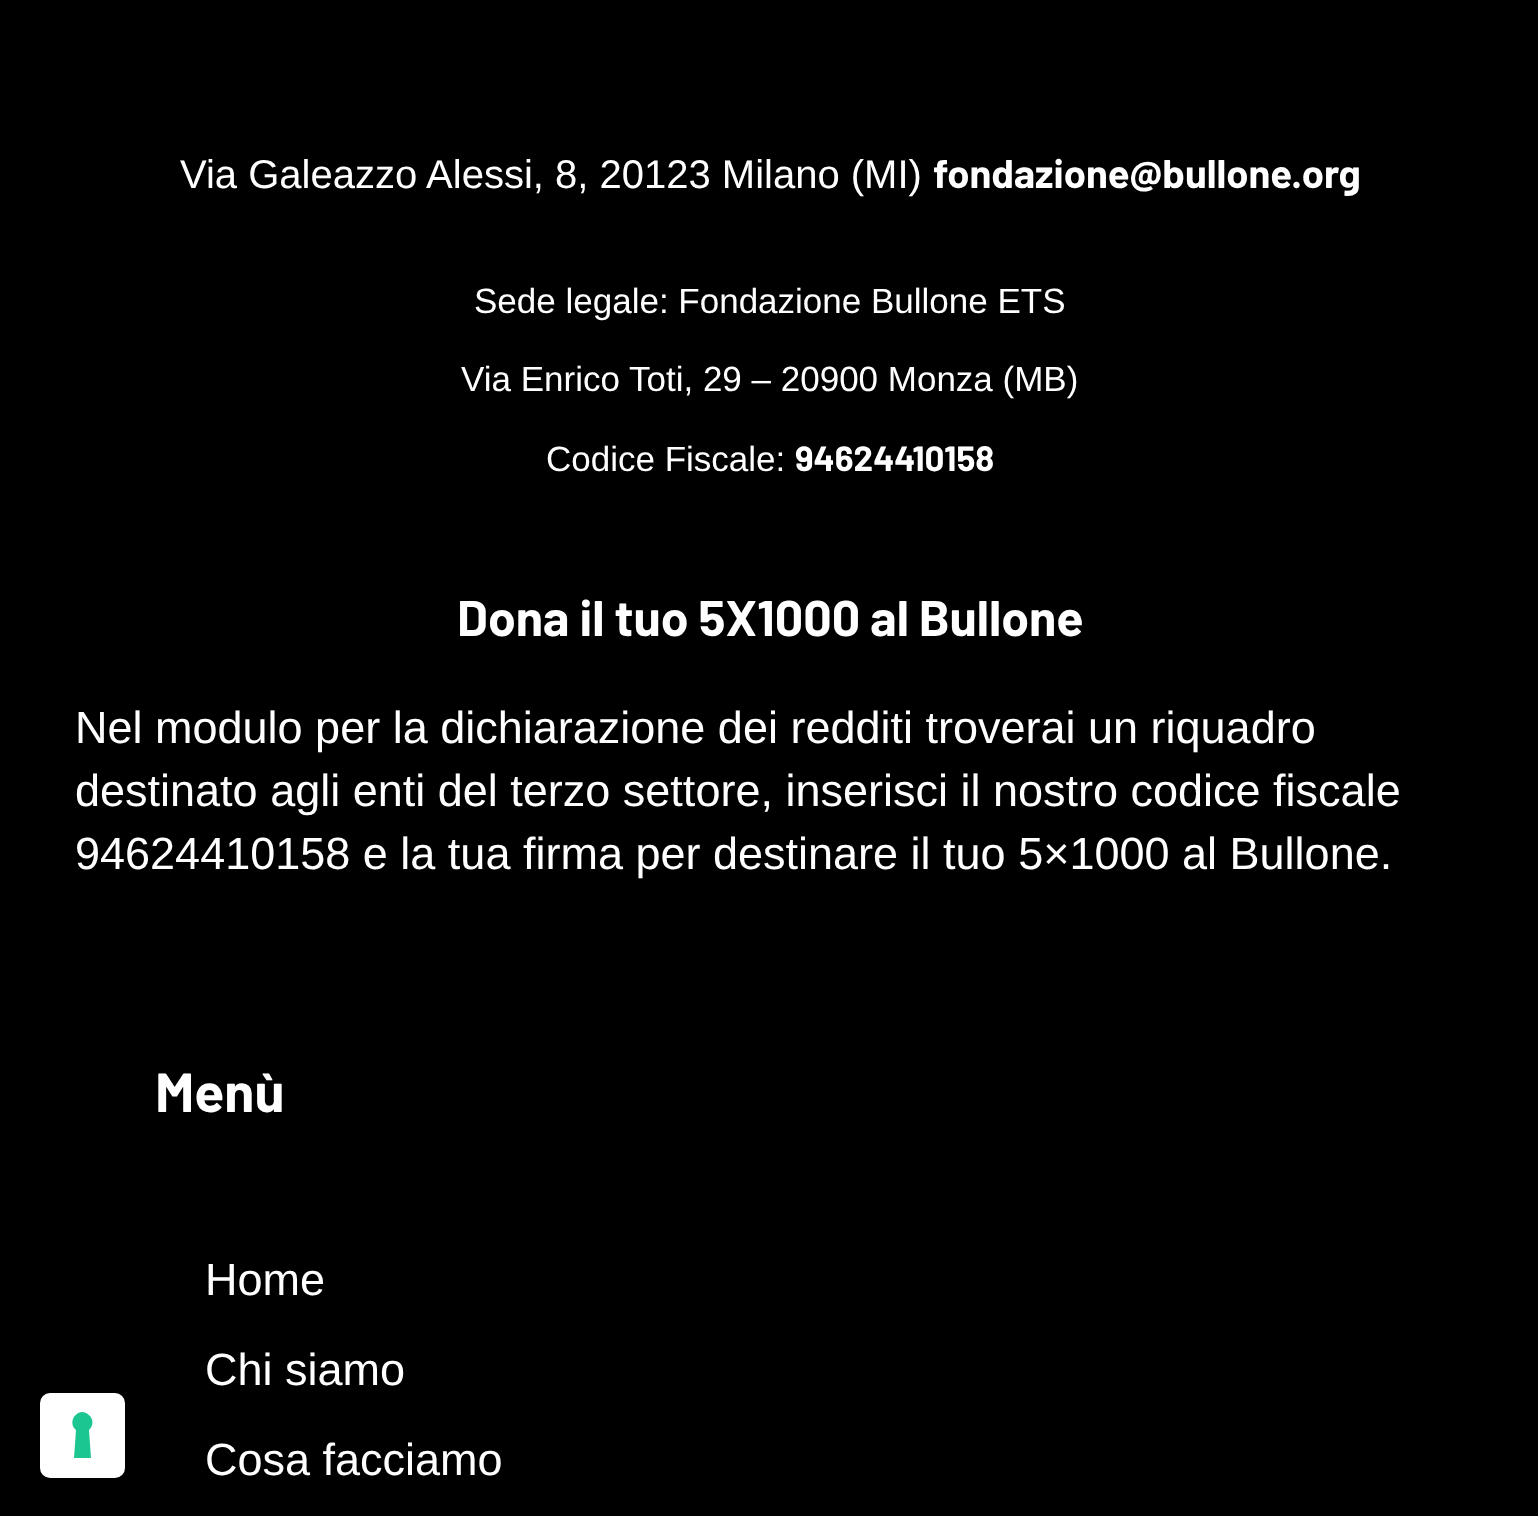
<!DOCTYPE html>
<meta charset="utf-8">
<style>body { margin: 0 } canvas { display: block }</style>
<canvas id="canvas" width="1538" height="1516"></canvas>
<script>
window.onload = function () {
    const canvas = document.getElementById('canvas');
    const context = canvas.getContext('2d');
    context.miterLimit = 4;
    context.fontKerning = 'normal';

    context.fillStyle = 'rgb(0, 0, 0)';
    context.fillRect(0, 0, 1538, 1516);
    context.fillStyle = 'rgb(255, 255, 255)';
    context.beginPath();
    context.roundRect(40, 1393, 85, 85, 10);
    context.fill();
    context.fillStyle = 'rgb(28, 198, 145)';
    context.beginPath();
    context.moveTo(82, 1412);
    context.bezierCurveTo(92, 1413, 96, 1424, 89, 1430);
    context.lineTo(91, 1458);
    context.lineTo(74, 1458);
    context.lineTo(76, 1430);
    context.bezierCurveTo(69, 1424, 73, 1413, 82, 1412);
    context.closePath();
    context.fill('evenodd');
    context.font = '40px Liberation Sans';
    context.fillStyle = 'rgb(255, 255, 255)';
    context.fillText('Via Galeazzo Alessi, 8, 20123 Milano (MI)', 180, 188);
    context.font = 'bold 40px Barlow';
    context.fillText('fondazione@bullone.org', 933, 188);
    context.font = '35px Liberation Sans';
    context.fillText('Sede legale: Fondazione Bullone ETS', 474, 313);
    context.fillText('Via Enrico Toti, 29 – 20900 Monza (MB)', 461, 391);
    context.fillText('Codice Fiscale:', 546, 471);
    context.font = 'bold 35px Barlow';
    context.fillText('94624410158', 795, 471);
    context.font = 'bold 50px Barlow';
    context.fillText('Dona il tuo 5X1000 al Bullone', 457, 636);
    context.font = '45px Liberation Sans';
    context.fillText('Nel modulo per la dichiarazione dei redditi troverai un riquadro', 75, 743);
    context.fillText('destinato agli enti del terzo settore, inserisci il nostro codice fiscale', 75, 806);
    context.fillText('94624410158 e la tua firma per destinare il tuo 5×1000 al Bullone.', 75, 869);
    context.font = 'bold 55px Barlow';
    context.fillText('Menù', 155, 1112);
    context.font = '45px Liberation Sans';
    context.fillText('Home', 205, 1295);
    context.fillText('Chi siamo', 205, 1385);
    context.fillText('Cosa facciamo', 205, 1475);
};
</script>
